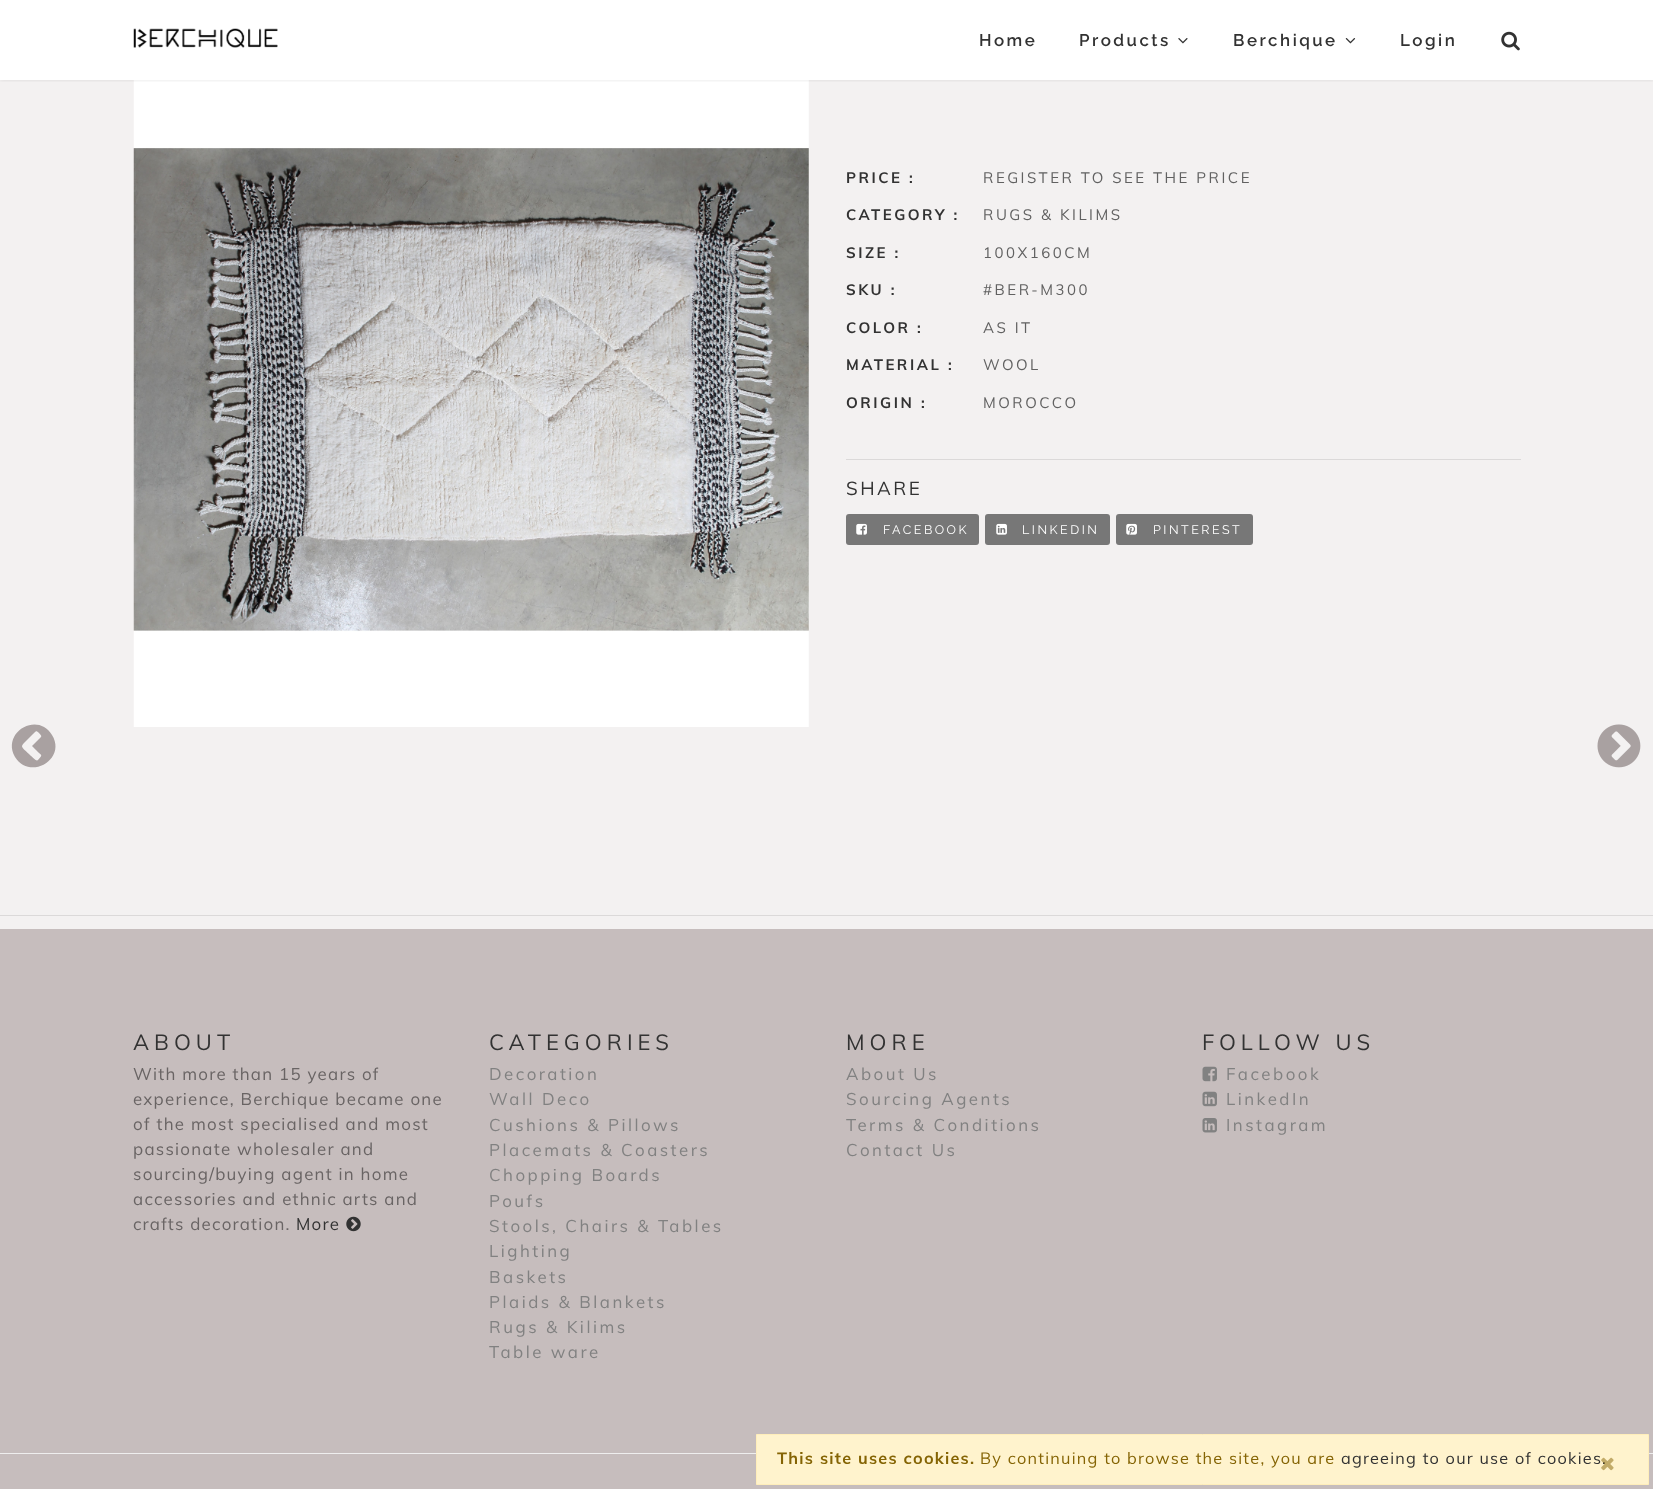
<!DOCTYPE html>
<meta charset="utf-8">
<style>body { margin: 0 } canvas { display: block }</style>
<canvas id="canvas" width="1653" height="1489"></canvas>
<img id="img1" src="images/5.png" hidden>
<img id="img2" src="images/1.png" hidden>
<img id="img3" src="images/2.png" hidden>
<img id="img4" src="images/3.png" hidden>
<img id="img5" src="images/4.png" hidden>
<img id="img6" src="images/6.png" hidden>
<img id="img7" src="images/7.png" hidden>
<img id="img8" src="images/8.png" hidden>
<img id="img9" src="images/9.png" hidden>
<img id="img10" src="images/10.png" hidden>
<img id="img11" src="images/11.png" hidden>
<img id="img12" src="images/12.png" hidden>
<img id="img13" src="images/13.png" hidden>
<img id="img14" src="images/14.png" hidden>
<script>
window.onload = function () {
    const canvas = document.getElementById('canvas');
    const context = canvas.getContext('2d');
    context.miterLimit = 4;
    context.fontKerning = 'normal';

    context.fillStyle = 'rgb(243, 241, 241)';
    context.fillRect(0, 0, 1653, 1489);
    context.drawImage(document.getElementById('img1'), 133, 52, 676, 675);
    context.save();
    context.beginPath();
    context.rect(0, 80, 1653, 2);
    context.clip();
    context.fillStyle = 'rgba(0, 0, 0, 0.1)';
    context.filter = 'blur(2px)';
    context.beginPath();
    context.rect(0, 0, 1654, 80);
    context.fill();
    context.filter = 'none';
    context.restore();
    context.fillStyle = 'rgba(255, 255, 255, 0.95)';
    context.fillRect(0, 0, 1653, 80);
    context.drawImage(document.getElementById('img2'), 133, 28, 145, 20);
    context.drawImage(document.getElementById('img3'), 1178, 38, 10, 6);
    context.drawImage(document.getElementById('img4'), 1345, 38, 11, 6);
    context.drawImage(document.getElementById('img5'), 1501, 31, 19, 20);
    context.fillStyle = 'rgb(219, 217, 217)';
    context.fillRect(846, 459, 675, 1);
    context.fillStyle = 'rgb(119, 119, 119)';
    context.beginPath();
    context.roundRect(846, 514, 133, 31, 3);
    context.fill();
    context.drawImage(document.getElementById('img6'), 856, 523, 11, 12);
    context.beginPath();
    context.roundRect(985, 514, 125, 31, 3);
    context.fill();
    context.drawImage(document.getElementById('img7'), 996, 523, 11, 12);
    context.beginPath();
    context.roundRect(1116, 514, 137, 31, 3);
    context.fill();
    context.drawImage(document.getElementById('img8'), 1126, 523, 11, 12);
    context.fillStyle = 'rgb(169, 161, 161)';
    context.beginPath();
    context.moveTo(38, 760);
    context.bezierCurveTo(41, 756, 43, 756, 39, 753);
    context.lineTo(32, 746);
    context.lineTo(41, 737);
    context.bezierCurveTo(42, 736, 40, 734, 39, 733);
    context.bezierCurveTo(36, 730, 36, 731, 33, 734);
    context.lineTo(29, 738);
    context.bezierCurveTo(19, 748, 20, 745, 31, 756);
    context.bezierCurveTo(32, 756, 36, 762, 38, 760);
    context.closePath();
    context.moveTo(52, 735);
    context.bezierCurveTo(67, 759, 30, 781, 15, 757);
    context.bezierCurveTo(1, 732, 38, 711, 52, 735);
    context.closePath();
    context.fill();
    context.drawImage(document.getElementById('img9'), 1597, 724, 44, 44);
    context.fillStyle = 'rgb(219, 217, 217)';
    context.fillRect(0, 915, 1653, 1);
    context.fillStyle = 'rgb(198, 189, 189)';
    context.fillRect(0, 929, 1653, 560);
    context.drawImage(document.getElementById('img10'), 346, 1216, 15, 16);
    context.drawImage(document.getElementById('img11'), 1202, 1066, 15, 16);
    context.drawImage(document.getElementById('img12'), 1202, 1091, 15, 16);
    context.drawImage(document.getElementById('img13'), 1202, 1118, 15, 15);
    context.fillStyle = 'rgb(238, 238, 238)';
    context.fillRect(0, 1453, 1653, 1);
    context.fillStyle = 'rgb(255, 243, 205)';
    context.beginPath();
    context.rect(756.5, 1434.5, 892, 50);
    context.fill();
    context.strokeStyle = 'rgb(255, 238, 186)';
    context.stroke();
    context.letterSpacing = '2.5px';
    context.font = '600 16.9px Raleway';
    context.fillStyle = 'rgb(50, 50, 50)';
    context.fillText('Home', 979, 46);
    context.fillText('Products', 1079, 46);
    context.fillText('Berchique', 1233, 46);
    context.fillText('Login', 1400, 46);
    context.font = 'bold 15px Muli';
    context.fillText('PRICE :', 846, 183);
    context.font = '15px Muli';
    context.fillStyle = 'rgb(97, 97, 97)';
    context.fillText('REGISTER TO SEE THE PRICE', 983, 183);
    context.font = 'bold 15px Muli';
    context.fillStyle = 'rgb(50, 50, 50)';
    context.fillText('CATEGORY :', 846, 220);
    context.font = '15px Muli';
    context.fillStyle = 'rgb(97, 97, 97)';
    context.fillText('RUGS & KILIMS', 983, 220);
    context.font = 'bold 15px Muli';
    context.fillStyle = 'rgb(50, 50, 50)';
    context.fillText('SIZE :', 846, 258);
    context.font = '15px Muli';
    context.fillStyle = 'rgb(97, 97, 97)';
    context.fillText('100X160CM', 983, 258);
    context.font = 'bold 15px Muli';
    context.fillStyle = 'rgb(50, 50, 50)';
    context.fillText('SKU :', 846, 295);
    context.font = '15px Muli';
    context.fillStyle = 'rgb(97, 97, 97)';
    context.fillText('#BER-M300', 983, 295);
    context.font = 'bold 15px Muli';
    context.fillStyle = 'rgb(50, 50, 50)';
    context.fillText('COLOR :', 846, 333);
    context.font = '15px Muli';
    context.fillStyle = 'rgb(97, 97, 97)';
    context.fillText('AS IT', 983, 333);
    context.font = 'bold 15px Muli';
    context.fillStyle = 'rgb(50, 50, 50)';
    context.fillText('MATERIAL :', 846, 370);
    context.font = '15px Muli';
    context.fillStyle = 'rgb(97, 97, 97)';
    context.fillText('WOOL', 983, 370);
    context.font = 'bold 15px Muli';
    context.fillStyle = 'rgb(50, 50, 50)';
    context.fillText('ORIGIN :', 846, 408);
    context.font = '15px Muli';
    context.fillStyle = 'rgb(97, 97, 97)';
    context.fillText('MOROCCO', 983, 408);
    context.font = '18.75px Muli';
    context.fillStyle = 'rgb(50, 50, 50)';
    context.fillText('SHARE', 846, 495);
    context.font = '12.5px Raleway';
    context.fillStyle = 'rgb(255, 255, 255)';
    context.fillText('FACEBOOK', 883, 534);
    context.fillText('LINKEDIN', 1022, 534);
    context.fillText('PINTEREST', 1153, 534);
    context.letterSpacing = '5px';
    context.font = '21.9px Muli';
    context.fillStyle = 'rgb(50, 50, 50)';
    context.fillText('ABOUT', 133, 1050);
    context.letterSpacing = '1.25px';
    context.font = '16.9px Muli';
    context.fillStyle = 'rgb(105, 100, 100)';
    context.fillText('With more than 15 years of', 133, 1080);
    context.fillText('experience, Berchique became one', 133, 1105);
    context.fillText('of the most specialised and most', 133, 1130);
    context.fillText('passionate wholesaler and', 133, 1155);
    context.fillText('sourcing/buying agent in home', 133, 1180);
    context.fillText('accessories and ethnic arts and', 133, 1205);
    context.fillText('crafts decoration.', 133, 1230);
    context.fillStyle = 'rgb(50, 50, 50)';
    context.fillText('More', 296, 1230);
    context.letterSpacing = '5px';
    context.font = '21.9px Muli';
    context.fillText('CATEGORIES', 489, 1050);
    context.letterSpacing = '2.5px';
    context.font = '16.9px Muli';
    context.fillStyle = 'rgb(129, 129, 129)';
    context.fillText('Decoration', 489, 1080);
    context.fillText('Wall Deco', 489, 1105);
    context.fillText('Cushions & Pillows', 489, 1131);
    context.fillText('Placemats & Coasters', 489, 1156);
    context.fillText('Chopping Boards', 489, 1181);
    context.fillText('Poufs', 489, 1207);
    context.fillText('Stools, Chairs & Tables', 489, 1232);
    context.fillText('Lighting', 489, 1257);
    context.fillText('Baskets', 489, 1283);
    context.fillText('Plaids & Blankets', 489, 1308);
    context.fillText('Rugs & Kilims', 489, 1333);
    context.fillText('Table ware', 489, 1358);
    context.letterSpacing = '5px';
    context.font = '21.9px Muli';
    context.fillStyle = 'rgb(50, 50, 50)';
    context.fillText('MORE', 846, 1050);
    context.letterSpacing = '2.5px';
    context.font = '16.9px Muli';
    context.fillStyle = 'rgb(129, 129, 129)';
    context.fillText('About Us', 846, 1080);
    context.fillText('Sourcing Agents', 846, 1105);
    context.fillText('Terms & Conditions', 846, 1131);
    context.fillText('Contact Us', 846, 1156);
    context.letterSpacing = '5px';
    context.font = '21.9px Muli';
    context.fillStyle = 'rgb(50, 50, 50)';
    context.fillText('FOLLOW US', 1202, 1050);
    context.letterSpacing = '2.5px';
    context.font = '16.9px Muli';
    context.fillStyle = 'rgb(129, 129, 129)';
    context.fillText('Facebook', 1226, 1080);
    context.fillText('LinkedIn', 1226, 1105);
    context.fillText('Instagram', 1226, 1131);
    context.letterSpacing = '1.25px';
    context.font = 'bold 16.25px Muli';
    context.fillStyle = 'rgb(133, 100, 4)';
    context.fillText('This site uses cookies.', 777, 1464);
    context.font = '16.25px Muli';
    context.fillText('By continuing to browse the site, you are', 980, 1464);
    context.fillStyle = 'rgb(50, 50, 50)';
    context.fillText('agreeing to our use of cookies.', 1341, 1464);
    context.drawImage(document.getElementById('img14'), 1601, 1457, 13, 14);
};
</script>
